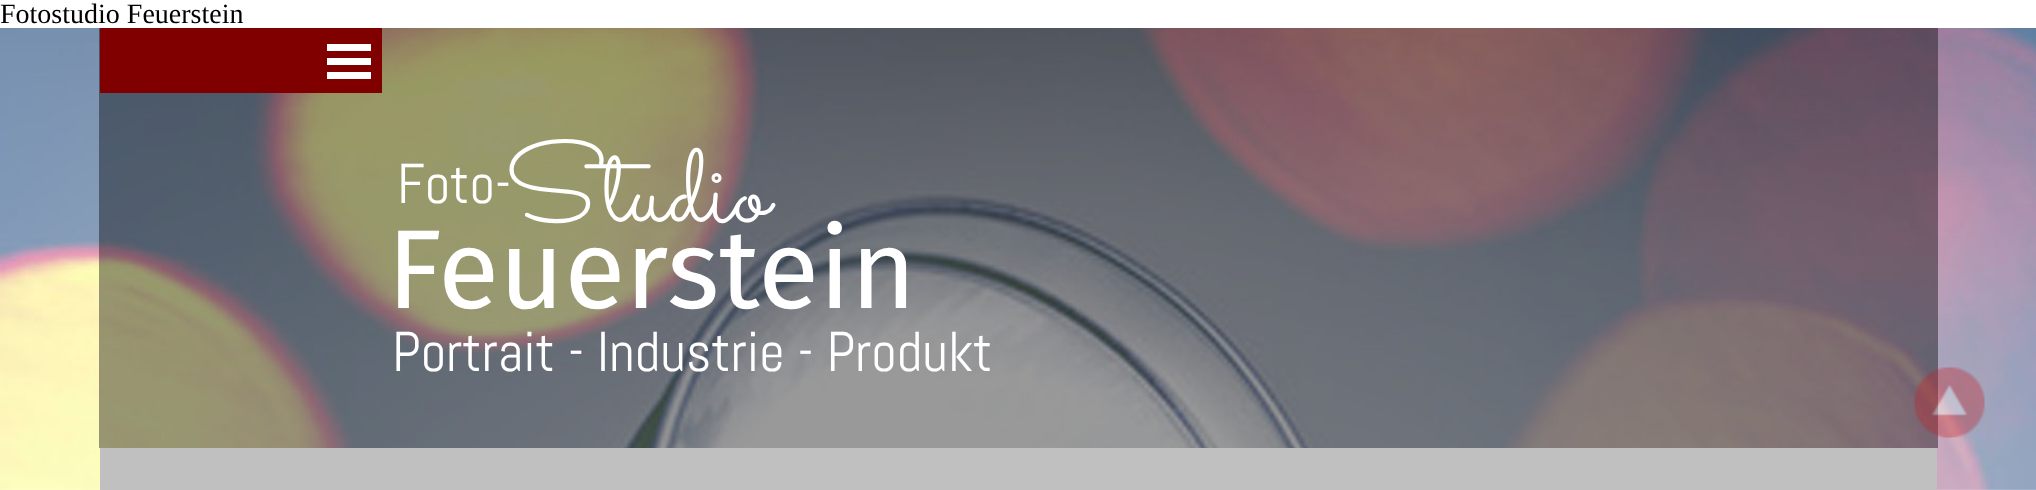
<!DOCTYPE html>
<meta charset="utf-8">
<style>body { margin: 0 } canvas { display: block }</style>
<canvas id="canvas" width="2036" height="490"></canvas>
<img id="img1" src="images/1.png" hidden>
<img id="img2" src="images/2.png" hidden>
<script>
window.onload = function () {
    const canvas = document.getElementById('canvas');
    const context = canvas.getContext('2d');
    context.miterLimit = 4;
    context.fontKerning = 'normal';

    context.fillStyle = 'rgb(255, 255, 255)';
    context.fillRect(0, 0, 2036, 490);
    context.drawImage(document.getElementById('img1'), 0, 28, 2036, 462);
    context.fillStyle = 'rgba(0, 0, 0, 0.4)';
    context.fillRect(99, 28, 1839, 420);
    context.fillStyle = 'rgb(128, 0, 0)';
    context.fillRect(100, 28, 282, 65);
    context.fillStyle = 'rgb(255, 255, 255)';
    context.fillRect(327, 44, 44, 7);
    context.fillRect(327, 58, 44, 7);
    context.fillRect(327, 72, 44, 7);
    context.fillStyle = 'rgb(192, 192, 192)';
    context.fillRect(100, 448, 1837, 42);
    context.drawImage(document.getElementById('img2'), 1914, 367, 71, 71);
    context.font = '28px Liberation Serif';
    context.fillStyle = 'rgb(0, 0, 0)';
    context.fillText('Fotostudio Feuerstein', 0, 23);
    context.font = '56px Abel';
    context.fillStyle = 'rgb(255, 255, 255)';
    context.fillText('Foto-', 397, 203);
    context.font = '112px Sacramento';
    context.fillText('Studio', 504, 221);
    context.font = '112px Fira Sans';
    context.fillText('Feuerstein', 387, 308);
    context.font = '56px Abel';
    context.fillText('Portrait - Industrie - Produkt', 392, 371);
};
</script>
